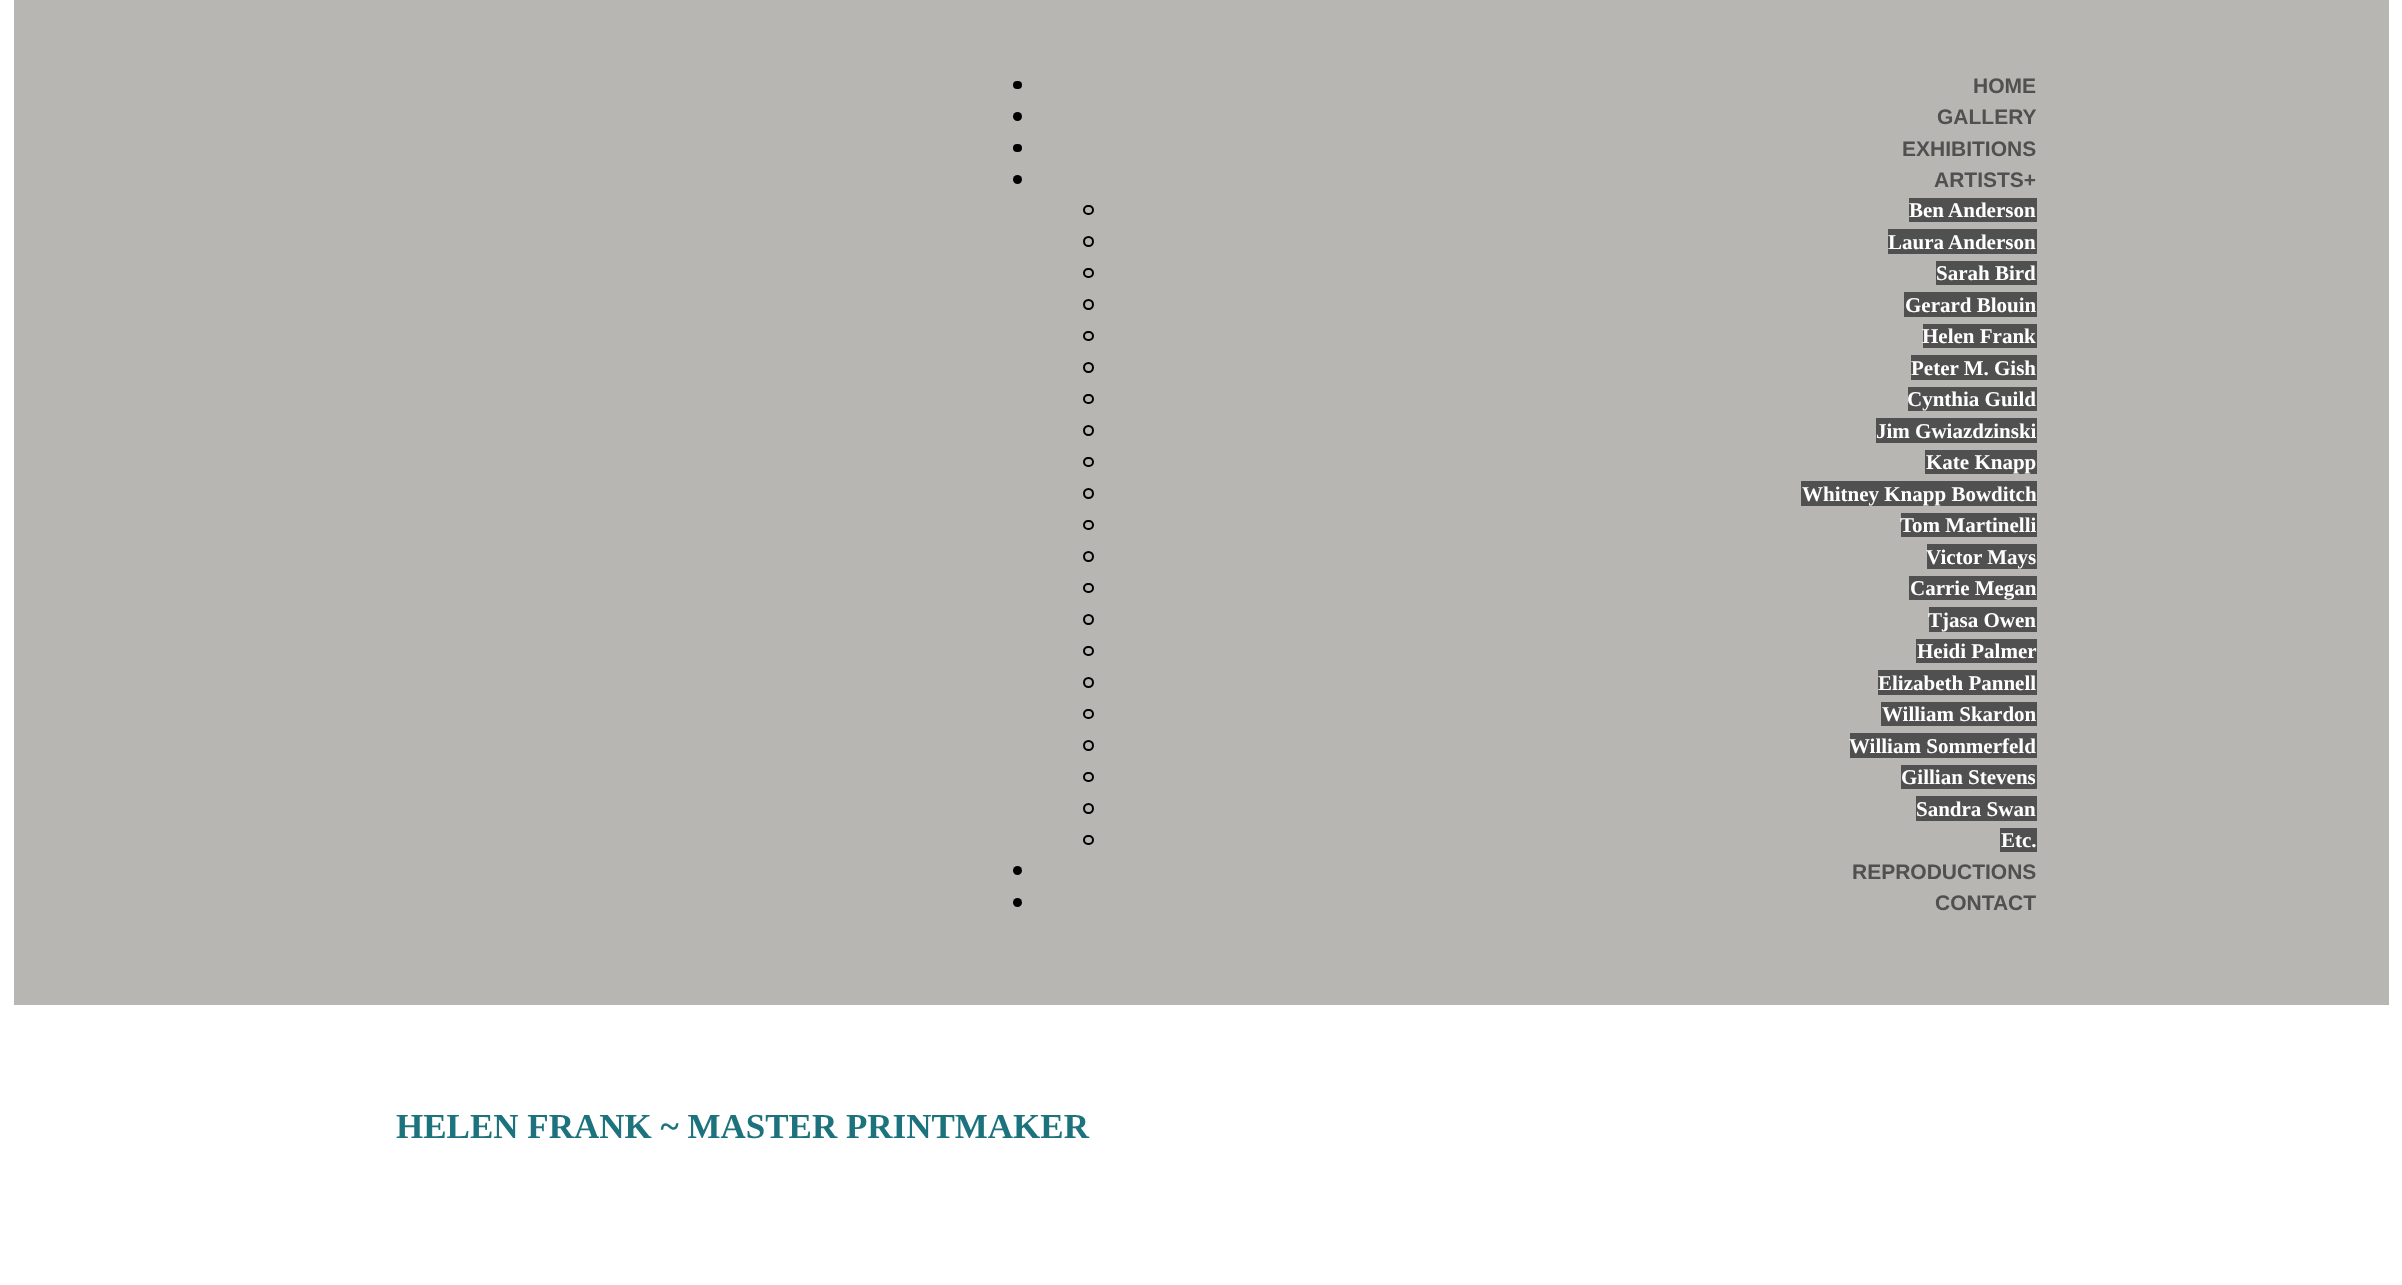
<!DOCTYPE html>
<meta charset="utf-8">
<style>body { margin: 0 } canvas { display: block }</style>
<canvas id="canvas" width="2402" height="1285"></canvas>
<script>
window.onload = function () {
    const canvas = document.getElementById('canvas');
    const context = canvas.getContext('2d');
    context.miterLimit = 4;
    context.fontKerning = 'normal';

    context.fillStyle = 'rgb(255, 255, 255)';
    context.fillRect(0, 0, 2402, 1285);
    context.fillStyle = 'rgb(183, 182, 178)';
    context.fillRect(14, 0, 2375, 1005);
    context.fillStyle = 'rgb(0, 0, 0)';
    context.beginPath();
    context.roundRect(1013, 81, 9, 8, 4);
    context.fill();
    context.beginPath();
    context.arc(1017.5, 116.5, 4.5, 0, 2 * Math.PI);
    context.fill();
    context.beginPath();
    context.roundRect(1013, 144, 9, 8, 4);
    context.fill();
    context.beginPath();
    context.arc(1017.5, 179.5, 4.5, 0, 2 * Math.PI);
    context.fill();
    context.beginPath();
    context.roundRect(1084, 206, 9, 8, 4);
    context.strokeStyle = 'rgb(0, 0, 0)';
    context.lineWidth = 2;
    context.stroke();
    context.fillStyle = 'rgb(80, 80, 80)';
    context.fillRect(1909, 198, 128, 24);
    context.beginPath();
    context.arc(1088.5, 241.5, 4.5, 0, 2 * Math.PI);
    context.stroke();
    context.fillRect(1888, 229, 149, 25);
    context.beginPath();
    context.roundRect(1084, 269, 9, 8, 4);
    context.stroke();
    context.fillRect(1936, 261, 101, 24);
    context.beginPath();
    context.arc(1088.5, 304.5, 4.5, 0, 2 * Math.PI);
    context.stroke();
    context.fillRect(1904, 292, 133, 25);
    context.beginPath();
    context.roundRect(1084, 332, 9, 8, 4);
    context.stroke();
    context.fillRect(1923, 324, 114, 24);
    context.beginPath();
    context.arc(1088.5, 367.5, 4.5, 0, 2 * Math.PI);
    context.stroke();
    context.fillRect(1911, 355, 126, 25);
    context.beginPath();
    context.roundRect(1084, 395, 9, 8, 4);
    context.stroke();
    context.fillRect(1908, 387, 129, 24);
    context.beginPath();
    context.arc(1088.5, 430.5, 4.5, 0, 2 * Math.PI);
    context.stroke();
    context.fillRect(1876, 418, 161, 25);
    context.beginPath();
    context.roundRect(1084, 458, 9, 8, 4);
    context.stroke();
    context.fillRect(1925, 450, 112, 24);
    context.beginPath();
    context.arc(1088.5, 493.5, 4.5, 0, 2 * Math.PI);
    context.stroke();
    context.fillRect(1801, 481, 236, 25);
    context.beginPath();
    context.roundRect(1084, 521, 9, 8, 4);
    context.stroke();
    context.fillRect(1901, 513, 136, 24);
    context.beginPath();
    context.arc(1088.5, 556.5, 4.5, 0, 2 * Math.PI);
    context.stroke();
    context.fillRect(1927, 544, 110, 25);
    context.beginPath();
    context.roundRect(1084, 584, 9, 8, 4);
    context.stroke();
    context.fillRect(1909, 576, 128, 24);
    context.beginPath();
    context.arc(1088.5, 619.5, 4.5, 0, 2 * Math.PI);
    context.stroke();
    context.fillRect(1929, 607, 108, 25);
    context.beginPath();
    context.roundRect(1084, 647, 9, 8, 4);
    context.stroke();
    context.fillRect(1916, 639, 121, 24);
    context.beginPath();
    context.arc(1088.5, 682.5, 4.5, 0, 2 * Math.PI);
    context.stroke();
    context.fillRect(1878, 670, 159, 25);
    context.beginPath();
    context.roundRect(1084, 710, 9, 8, 4);
    context.stroke();
    context.fillRect(1881, 702, 156, 24);
    context.beginPath();
    context.arc(1088.5, 745.5, 4.5, 0, 2 * Math.PI);
    context.stroke();
    context.fillRect(1850, 733, 187, 25);
    context.beginPath();
    context.roundRect(1084, 773, 9, 8, 4);
    context.stroke();
    context.fillRect(1901, 765, 136, 24);
    context.beginPath();
    context.arc(1088.5, 808.5, 4.5, 0, 2 * Math.PI);
    context.stroke();
    context.fillRect(1916, 796, 121, 25);
    context.beginPath();
    context.roundRect(1084, 836, 9, 8, 4);
    context.stroke();
    context.fillRect(2000, 828, 37, 24);
    context.fillStyle = 'rgb(0, 0, 0)';
    context.beginPath();
    context.arc(1017.5, 870.5, 4.5, 0, 2 * Math.PI);
    context.fill();
    context.beginPath();
    context.arc(1017.5, 902.5, 4.5, 0, 2 * Math.PI);
    context.fill();
    context.font = 'bold 21px Liberation Sans';
    context.fillStyle = 'rgb(80, 80, 80)';
    context.fillText('HOME', 1973, 93);
    context.fillText('GALLERY', 1937, 124);
    context.fillText('EXHIBITIONS', 1902, 156);
    context.fillText('ARTISTS+', 1934, 187);
    context.font = 'bold 21px Liberation Serif';
    context.fillStyle = 'rgb(255, 255, 255)';
    context.fillText('Ben Anderson', 1909, 217);
    context.fillText('Laura Anderson', 1888, 249);
    context.fillText('Sarah Bird', 1936, 280);
    context.fillText('Gerard Blouin', 1905, 312);
    context.fillText('Helen Frank', 1922, 343);
    context.fillText('Peter M. Gish', 1911, 375);
    context.fillText('Cynthia Guild', 1907, 406);
    context.fillText('Jim Gwiazdzinski', 1876, 438);
    context.fillText('Kate Knapp', 1926, 469);
    context.fillText('Whitney Knapp Bowditch', 1802, 501);
    context.fillText('Tom Martinelli', 1900, 532);
    context.fillText('Victor Mays', 1926, 564);
    context.fillText('Carrie Megan', 1910, 595);
    context.fillText('Tjasa Owen', 1928, 627);
    context.fillText('Heidi Palmer', 1917, 658);
    context.fillText('Elizabeth Pannell', 1878, 690);
    context.fillText('William Skardon', 1882, 721);
    context.fillText('William Sommerfeld', 1849, 753);
    context.fillText('Gillian Stevens', 1901, 784);
    context.fillText('Sandra Swan', 1916, 816);
    context.fillText('Etc.', 2001, 847);
    context.font = 'bold 21px Liberation Sans';
    context.fillStyle = 'rgb(80, 80, 80)';
    context.fillText('REPRODUCTIONS', 1852, 879);
    context.fillText('CONTACT', 1935, 910);
    context.font = 'bold 35px Liberation Serif';
    context.fillStyle = 'rgb(29, 115, 125)';
    context.fillText('HELEN FRANK ~ MASTER PRINTMAKER', 396, 1138);
};
</script>
